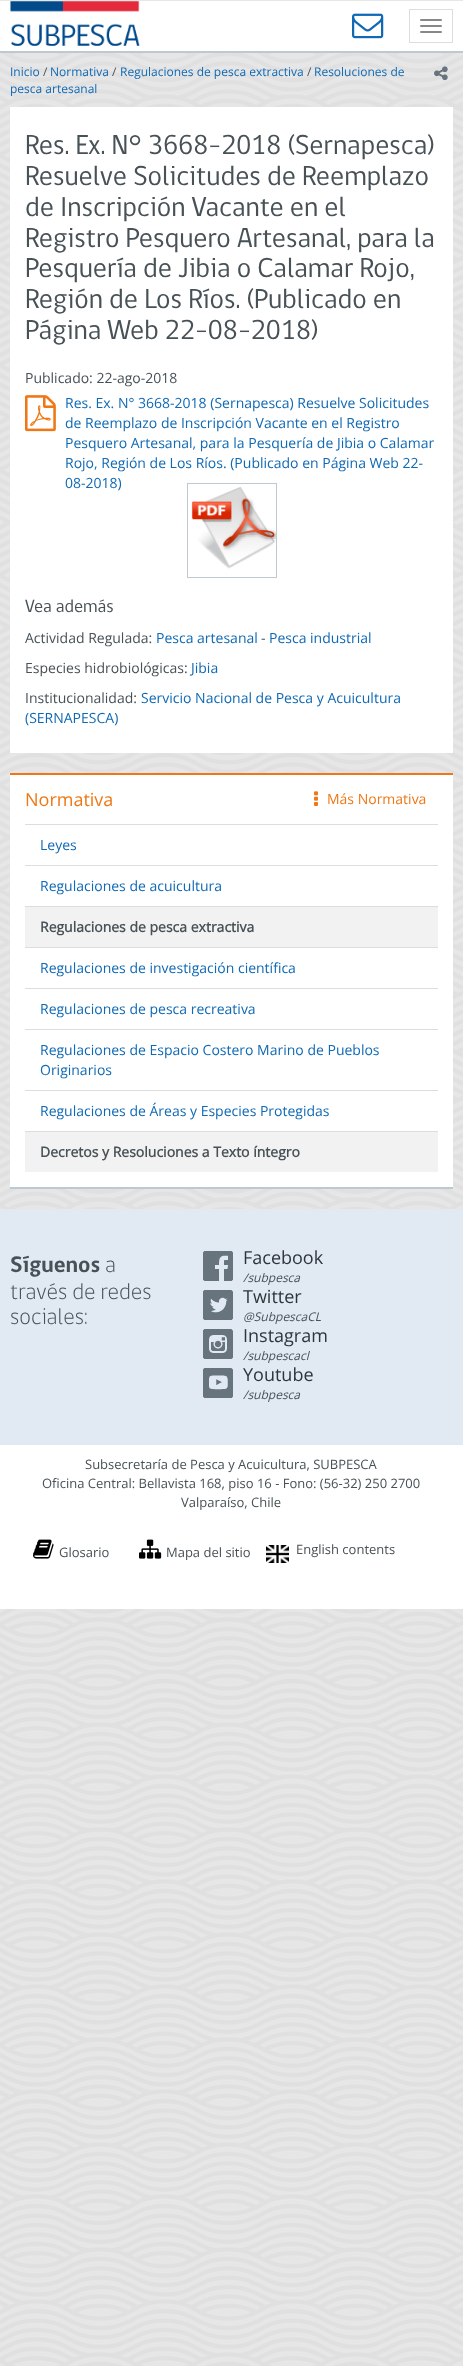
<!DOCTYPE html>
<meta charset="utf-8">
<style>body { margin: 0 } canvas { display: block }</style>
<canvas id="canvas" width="463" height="2366"></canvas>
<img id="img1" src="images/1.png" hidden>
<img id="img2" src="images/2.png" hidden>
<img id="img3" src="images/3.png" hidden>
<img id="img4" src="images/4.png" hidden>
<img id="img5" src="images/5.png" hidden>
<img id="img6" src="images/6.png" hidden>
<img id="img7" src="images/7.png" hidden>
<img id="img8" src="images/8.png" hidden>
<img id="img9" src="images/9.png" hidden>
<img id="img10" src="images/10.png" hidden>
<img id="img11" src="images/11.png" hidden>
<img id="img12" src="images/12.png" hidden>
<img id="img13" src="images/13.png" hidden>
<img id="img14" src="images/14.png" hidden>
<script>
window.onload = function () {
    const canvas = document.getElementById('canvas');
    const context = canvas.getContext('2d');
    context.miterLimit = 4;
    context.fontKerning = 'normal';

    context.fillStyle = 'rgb(230, 230, 230)';
    context.fillRect(0, 0, 463, 2366);
    context.drawImage(document.getElementById('img1'), 0, 53, 463, 2313);
    context.fillStyle = 'rgb(255, 255, 255)';
    context.fillRect(0, 1, 463, 50);
    context.fillStyle = 'rgb(189, 201, 209)';
    context.fillRect(0, 51, 463, 2);
    context.drawImage(document.getElementById('img2'), 10, 1, 130, 45);
    context.strokeStyle = 'rgb(221, 221, 221)';
    context.strokeRect(409.5, 9.5, 43, 33);
    context.fillStyle = 'rgb(136, 136, 136)';
    context.beginPath();
    context.roundRect(420, 19, 22, 2, 1);
    context.fill();
    context.beginPath();
    context.roundRect(420, 25, 22, 2, 1);
    context.fill();
    context.beginPath();
    context.roundRect(420, 31, 22, 2, 1);
    context.fill();
    context.drawImage(document.getElementById('img3'), 352, 13, 32, 26);
    context.drawImage(document.getElementById('img4'), 434, 66, 14, 15);
    context.fillStyle = 'rgb(255, 255, 255)';
    context.fillRect(10, 107, 443, 646);
    context.drawImage(document.getElementById('img5'), 25, 395, 31, 37);
    context.strokeStyle = 'rgb(189, 201, 209)';
    context.strokeRect(187.5, 483.5, 89, 94);
    context.drawImage(document.getElementById('img6'), 191, 487, 85, 82);
    context.fillRect(10, 775, 443, 412);
    context.fillStyle = 'rgb(238, 120, 21)';
    context.fillRect(10, 773, 443, 2);
    context.fillStyle = 'rgb(189, 201, 209)';
    context.fillRect(10, 1187, 443, 2);
    context.fillStyle = 'rgb(221, 221, 221)';
    context.fillRect(25, 824, 413, 1);
    context.fillRect(25, 865, 413, 1);
    context.fillRect(25, 906, 413, 1);
    context.fillStyle = 'rgb(242, 242, 242)';
    context.fillRect(25, 907, 413, 40);
    context.fillStyle = 'rgb(221, 221, 221)';
    context.fillRect(25, 947, 413, 1);
    context.fillRect(25, 988, 413, 1);
    context.fillRect(25, 1029, 413, 1);
    context.fillRect(25, 1090, 413, 1);
    context.fillStyle = 'rgb(242, 242, 242)';
    context.fillRect(25, 1132, 413, 40);
    context.fillStyle = 'rgb(221, 221, 221)';
    context.fillRect(25, 1131, 413, 1);
    context.drawImage(document.getElementById('img7'), 314, 791, 4, 15);
    context.fillStyle = 'rgb(255, 255, 255)';
    context.fillRect(0, 1445, 463, 164);
    context.fillStyle = 'rgb(225, 234, 243)';
    context.fillRect(0, 1209, 463, 236);
    context.drawImage(document.getElementById('img8'), 203, 1251, 30, 30);
    context.drawImage(document.getElementById('img9'), 203, 1290, 30, 30);
    context.drawImage(document.getElementById('img10'), 203, 1329, 30, 30);
    context.drawImage(document.getElementById('img11'), 203, 1368, 30, 30);
    context.drawImage(document.getElementById('img12'), 33, 1539, 21, 20);
    context.drawImage(document.getElementById('img13'), 139, 1539, 23, 20);
    context.drawImage(document.getElementById('img14'), 266, 1545, 23, 18);
    context.font = '12px Open Sans';
    context.fillStyle = 'rgb(15, 105, 180)';
    context.fillText('Inicio', 10, 76);
    context.fillStyle = 'rgb(71, 81, 86)';
    context.fillText('/', 43, 76);
    context.fillStyle = 'rgb(15, 105, 180)';
    context.fillText('Normativa', 50, 76);
    context.fillStyle = 'rgb(71, 81, 86)';
    context.fillText('/', 112, 76);
    context.fillStyle = 'rgb(15, 105, 180)';
    context.fillText('Regulaciones de pesca extractiva', 120, 76);
    context.fillStyle = 'rgb(71, 81, 86)';
    context.fillText('/', 307, 76);
    context.fillStyle = 'rgb(15, 105, 180)';
    context.fillText('Resoluciones de', 314, 76);
    context.fillText('pesca artesanal', 10, 93);
    context.font = '28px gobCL';
    context.fillStyle = 'rgb(71, 81, 86)';
    context.fillText('Res. Ex. N° 3668-2018 (Sernapesca)', 25, 154);
    context.fillText('Resuelve Solicitudes de Reemplazo', 25, 185);
    context.fillText('de Inscripción Vacante en el', 25, 216);
    context.fillText('Registro Pesquero Artesanal, para la', 25, 247);
    context.fillText('Pesquería de Jibia o Calamar Rojo,', 25, 277);
    context.fillText('Región de Los Ríos. (Publicado en', 25, 308);
    context.fillText('Página Web 22-08-2018)', 25, 339);
    context.font = '14px Open Sans';
    context.fillText('Publicado: 22-ago-2018', 25, 383);
    context.fillStyle = 'rgb(15, 105, 180)';
    context.fillText('Res. Ex. N° 3668-2018 (Sernapesca) Resuelve Solicitudes', 65, 408);
    context.fillText('de Reemplazo de Inscripción Vacante en el Registro', 65, 428);
    context.fillText('Pesquero Artesanal, para la Pesquería de Jibia o Calamar', 65, 448);
    context.fillText('Rojo, Región de Los Ríos. (Publicado en Página Web 22-', 65, 468);
    context.fillText('08-2018)', 65, 488);
    context.font = '18px gobCL';
    context.fillStyle = 'rgb(71, 81, 86)';
    context.fillText('Vea además', 25, 612);
    context.font = '14px Open Sans';
    context.fillText('Actividad Regulada:', 25, 643);
    context.fillStyle = 'rgb(15, 105, 180)';
    context.fillText('Pesca artesanal', 156, 643);
    context.fillStyle = 'rgb(71, 81, 86)';
    context.fillText('-', 261, 643);
    context.fillStyle = 'rgb(15, 105, 180)';
    context.fillText('Pesca industrial', 269, 643);
    context.fillStyle = 'rgb(71, 81, 86)';
    context.fillText('Especies hidrobiológicas:', 25, 673);
    context.fillStyle = 'rgb(15, 105, 180)';
    context.fillText('Jibia', 191, 673);
    context.fillStyle = 'rgb(71, 81, 86)';
    context.fillText('Institucionalidad:', 25, 703);
    context.fillStyle = 'rgb(15, 105, 180)';
    context.fillText('Servicio Nacional de Pesca y Acuicultura', 141, 703);
    context.fillText('(SERNAPESCA)', 25, 723);
    context.font = '18px Open Sans';
    context.fillStyle = 'rgb(238, 120, 21)';
    context.fillText('Normativa', 25, 806);
    context.font = '14px Open Sans';
    context.fillStyle = 'rgb(15, 105, 180)';
    context.fillText('Leyes', 40, 850);
    context.fillText('Regulaciones de acuicultura', 40, 891);
    context.font = 'bold 14px Open Sans';
    context.fillStyle = 'rgb(71, 81, 86)';
    context.fillText('Regulaciones de pesca extractiva', 40, 932);
    context.font = '14px Open Sans';
    context.fillStyle = 'rgb(15, 105, 180)';
    context.fillText('Regulaciones de investigación científica', 40, 973);
    context.fillText('Regulaciones de pesca recreativa', 40, 1014);
    context.fillText('Regulaciones de Espacio Costero Marino de Pueblos', 40, 1055);
    context.fillText('Originarios', 40, 1075);
    context.fillText('Regulaciones de Áreas y Especies Protegidas', 40, 1116);
    context.font = 'bold 14px Open Sans';
    context.fillStyle = 'rgb(71, 81, 86)';
    context.fillText('Decretos y Resoluciones a Texto íntegro', 40, 1157);
    context.font = '14px Open Sans';
    context.fillStyle = 'rgb(238, 120, 21)';
    context.fillText('Más Normativa', 327, 804);
    context.font = 'bold 23px gobCL';
    context.fillStyle = 'rgb(71, 81, 86)';
    context.fillText('Síguenos', 10, 1272);
    context.font = '300 23px gobCL';
    context.fillText('a', 105, 1272);
    context.fillText('través de redes', 10, 1299);
    context.fillText('sociales:', 10, 1324);
    context.font = '18px Open Sans';
    context.fillStyle = 'rgb(46, 53, 58)';
    context.fillText('Facebook', 243, 1264);
    context.font = 'italic 12px Open Sans';
    context.fillStyle = 'rgb(71, 81, 86)';
    context.fillText('/subpesca', 243, 1282);
    context.font = '18px Open Sans';
    context.fillStyle = 'rgb(46, 53, 58)';
    context.fillText('Twitter', 243, 1303);
    context.font = 'italic 12px Open Sans';
    context.fillStyle = 'rgb(71, 81, 86)';
    context.fillText('@SubpescaCL', 243, 1321);
    context.font = '18px Open Sans';
    context.fillStyle = 'rgb(46, 53, 58)';
    context.fillText('Instagram', 243, 1342);
    context.font = 'italic 12px Open Sans';
    context.fillStyle = 'rgb(71, 81, 86)';
    context.fillText('/subpescacl', 243, 1360);
    context.font = '18px Open Sans';
    context.fillStyle = 'rgb(46, 53, 58)';
    context.fillText('Youtube', 243, 1381);
    context.font = 'italic 12px Open Sans';
    context.fillStyle = 'rgb(71, 81, 86)';
    context.fillText('/subpesca', 243, 1399);
    context.font = '13px Open Sans';
    context.fillText('Subsecretaría de Pesca y Acuicultura, SUBPESCA', 85, 1469);
    context.fillText('Oficina Central: Bellavista 168, piso 16 - Fono: (56-32) 250 2700', 42, 1488);
    context.fillText('Valparaíso, Chile', 181, 1507);
    context.fillText('Glosario', 59, 1557);
    context.fillText('Mapa del sitio', 166, 1557);
    context.fillText('English contents', 296, 1554);
};
</script>
